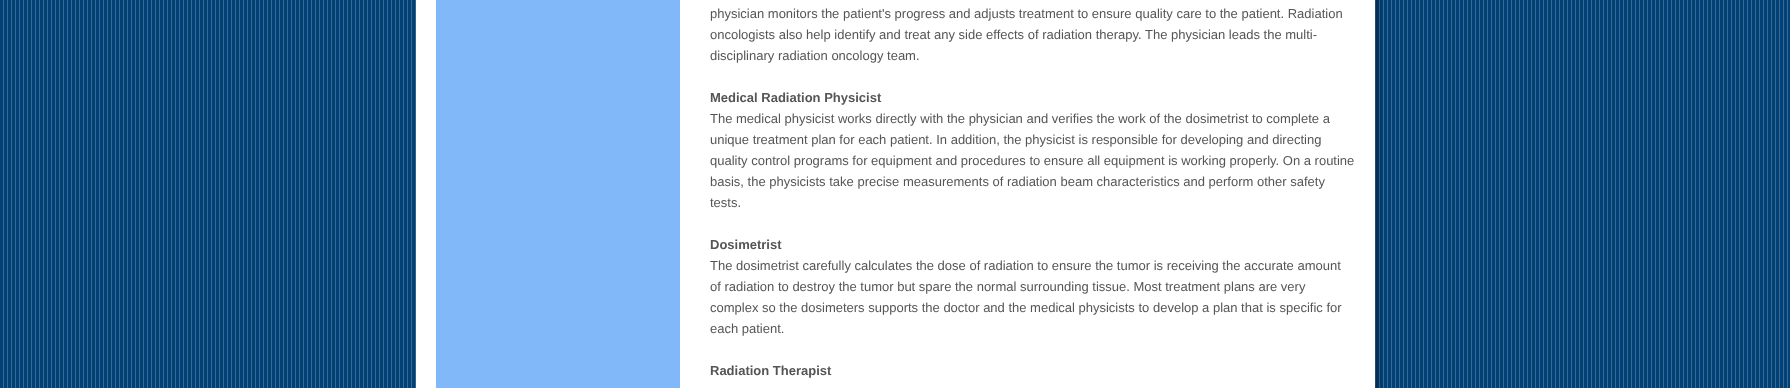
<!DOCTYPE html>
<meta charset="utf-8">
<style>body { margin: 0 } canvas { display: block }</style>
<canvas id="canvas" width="1790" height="388"></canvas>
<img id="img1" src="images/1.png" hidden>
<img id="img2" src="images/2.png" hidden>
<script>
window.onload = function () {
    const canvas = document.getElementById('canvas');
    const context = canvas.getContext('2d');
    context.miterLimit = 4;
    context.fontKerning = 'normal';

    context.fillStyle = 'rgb(255, 255, 255)';
    context.fillRect(0, 0, 1790, 388);
    context.drawImage(document.getElementById('img1'), 0, 0, 1790, 388);
    context.drawImage(document.getElementById('img2'), 414, 0, 969, 388);
    context.fillRect(416, 0, 959, 388);
    context.fillStyle = 'rgb(129, 184, 249)';
    context.fillRect(436, 0, 244, 388);
    context.font = '13px Liberation Sans';
    context.fillStyle = 'rgb(85, 85, 85)';
    context.fillText('physician monitors the patient\'s progress and adjusts treatment to ensure quality care to the patient. Radiation', 710, 18);
    context.fillText('oncologists also help identify and treat any side effects of radiation therapy. The physician leads the multi-', 710, 39);
    context.fillText('disciplinary radiation oncology team.', 710, 60);
    context.font = 'bold 13px Liberation Sans';
    context.fillText('Medical Radiation Physicist', 710, 102);
    context.font = '13px Liberation Sans';
    context.fillText('The medical physicist works directly with the physician and verifies the work of the dosimetrist to complete a', 710, 123);
    context.fillText('unique treatment plan for each patient. In addition, the physicist is responsible for developing and directing', 710, 144);
    context.fillText('quality control programs for equipment and procedures to ensure all equipment is working properly. On a routine', 710, 165);
    context.fillText('basis, the physicists take precise measurements of radiation beam characteristics and perform other safety', 710, 186);
    context.fillText('tests.', 710, 207);
    context.font = 'bold 13px Liberation Sans';
    context.fillText('Dosimetrist', 710, 249);
    context.font = '13px Liberation Sans';
    context.fillText('The dosimetrist carefully calculates the dose of radiation to ensure the tumor is receiving the accurate amount', 710, 270);
    context.fillText('of radiation to destroy the tumor but spare the normal surrounding tissue. Most treatment plans are very', 710, 291);
    context.fillText('complex so the dosimeters supports the doctor and the medical physicists to develop a plan that is specific for', 710, 312);
    context.fillText('each patient.', 710, 333);
    context.font = 'bold 13px Liberation Sans';
    context.fillText('Radiation Therapist', 710, 375);
};
</script>
